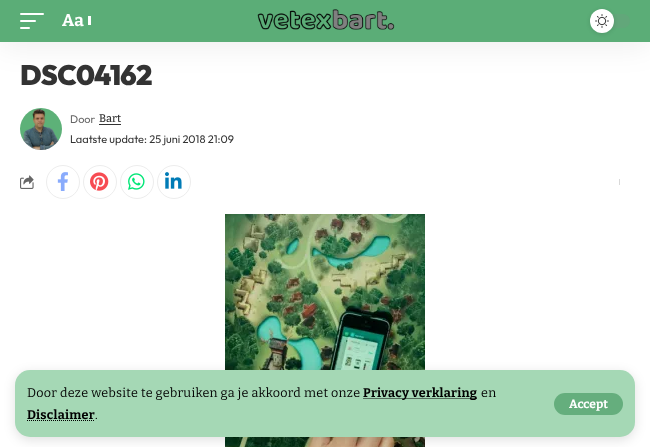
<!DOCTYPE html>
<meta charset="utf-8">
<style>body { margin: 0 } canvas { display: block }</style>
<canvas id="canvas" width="650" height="447"></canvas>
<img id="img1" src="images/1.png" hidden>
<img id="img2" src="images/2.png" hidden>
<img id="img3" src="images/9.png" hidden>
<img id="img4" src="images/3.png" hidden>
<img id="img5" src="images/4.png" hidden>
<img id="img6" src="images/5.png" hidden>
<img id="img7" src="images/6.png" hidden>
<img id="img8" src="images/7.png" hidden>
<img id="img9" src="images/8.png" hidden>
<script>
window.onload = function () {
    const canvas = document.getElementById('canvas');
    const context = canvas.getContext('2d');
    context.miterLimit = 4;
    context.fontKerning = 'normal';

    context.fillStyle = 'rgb(255, 255, 255)';
    context.fillRect(0, 0, 650, 447);
    context.fillStyle = 'rgba(0, 0, 0, 0.07)';
    context.filter = 'blur(15px)';
    context.beginPath();
    context.rect(0, 4, 650, 42);
    context.fill();
    context.filter = 'none';
    context.fillStyle = 'rgb(91, 173, 119)';
    context.fillRect(0, 0, 650, 42);
    context.fillStyle = 'rgb(255, 255, 255)';
    context.beginPath();
    context.roundRect(20, 13, 24, 2, 1);
    context.fill();
    context.beginPath();
    context.roundRect(20, 20, 16, 2, 1);
    context.fill();
    context.beginPath();
    context.roundRect(20, 27, 10, 2, 1);
    context.fill();
    context.fillRect(88, 16, 3, 9);
    context.drawImage(document.getElementById('img1'), 257, 9, 138, 21);
    context.fillStyle = 'rgb(98, 167, 122)';
    context.beginPath();
    context.roundRect(590, 14, 40, 14, 7);
    context.fill();
    context.fillStyle = 'rgba(0, 0, 0, 0.12)';
    context.filter = 'blur(2px)';
    context.beginPath();
    context.roundRect(590, 10, 24, 24, 12);
    context.fill();
    context.filter = 'none';
    context.fillStyle = 'rgb(255, 255, 255)';
    context.beginPath();
    context.arc(602, 21, 12, 0, 2 * Math.PI);
    context.fill();
    context.drawImage(document.getElementById('img2'), 595, 14, 14, 14);
    context.drawImage(document.getElementById('img3'), 225, 214, 200, 233);
    context.fillStyle = 'rgba(0, 0, 0, 0.12)';
    context.filter = 'blur(6px)';
    context.beginPath();
    context.roundRect(15, 373, 620, 67, 15);
    context.fill();
    context.filter = 'none';
    context.fillStyle = 'rgb(165, 216, 181)';
    context.beginPath();
    context.roundRect(15, 370, 620, 67, 15);
    context.fill();
    context.beginPath();
    context.moveTo(363.5, 398.5);
    context.lineTo(477.5, 398.5);
    context.strokeStyle = 'rgb(0, 0, 0)';
    context.setLineDash([1, 1]);
    context.stroke();
    context.beginPath();
    context.moveTo(27, 420.5);
    context.lineTo(95, 420.5);
    context.stroke();
    context.fillStyle = 'rgb(101, 174, 125)';
    context.beginPath();
    context.roundRect(554, 393, 69, 22, 11);
    context.fill();
    context.drawImage(document.getElementById('img4'), 20, 108, 42, 42);
    context.fillStyle = 'rgb(51, 51, 51)';
    context.fillRect(99, 124, 22, 1);
    context.drawImage(document.getElementById('img5'), 20, 175, 14, 14);
    context.beginPath();
    context.arc(63, 182, 16.5, 0, 2 * Math.PI);
    context.strokeStyle = 'rgb(237, 237, 237)';
    context.setLineDash([]);
    context.stroke();
    context.drawImage(document.getElementById('img6'), 57, 172, 11, 19);
    context.beginPath();
    context.arc(100, 182, 16.5, 0, 2 * Math.PI);
    context.stroke();
    context.drawImage(document.getElementById('img7'), 90, 172, 19, 19);
    context.beginPath();
    context.arc(137, 182, 16.5, 0, 2 * Math.PI);
    context.stroke();
    context.drawImage(document.getElementById('img8'), 128, 173, 17, 17);
    context.beginPath();
    context.arc(174, 182, 16.5, 0, 2 * Math.PI);
    context.stroke();
    context.drawImage(document.getElementById('img9'), 165, 172, 17, 17);
    context.fillStyle = 'rgb(217, 217, 217)';
    context.fillRect(619, 179, 1, 6);
    context.letterSpacing = '0.28px';
    context.font = 'bold 17px Bitter';
    context.fillStyle = 'rgb(255, 255, 255)';
    context.fillText('Aa', 62, 26);
    context.font = '12.6px Bitter';
    context.fillStyle = 'rgb(0, 0, 0)';
    context.fillText('Door deze website te gebruiken ga je akkoord met onze', 27, 397);
    context.font = 'bold 12.6px Bitter';
    context.fillText('Privacy verklaring', 363, 397);
    context.font = '12.6px Bitter';
    context.fillText('en', 481, 397);
    context.font = 'bold 12.6px Bitter';
    context.fillText('Disclaimer', 27, 419);
    context.font = '12.6px Bitter';
    context.fillText('.', 95, 419);
    context.letterSpacing = '0px';
    context.font = 'bold 12px Bitter';
    context.fillStyle = 'rgb(255, 255, 255)';
    context.fillText('Accept', 569, 408);
    context.letterSpacing = '-0.75px';
    context.font = '900 28px Outfit';
    context.fillStyle = 'rgb(51, 51, 51)';
    context.fillText('DSC04162', 20, 85);
    context.letterSpacing = '0px';
    context.font = '11px Outfit';
    context.fillStyle = 'rgb(102, 102, 102)';
    context.fillText('Door', 70, 123);
    context.font = '500 11px Bitter';
    context.fillStyle = 'rgb(51, 51, 51)';
    context.fillText('Bart', 99, 122);
    context.font = '11px Outfit';
    context.fillText('Laatste update: 25 juni 2018 21:09', 70, 143);
};
</script>
